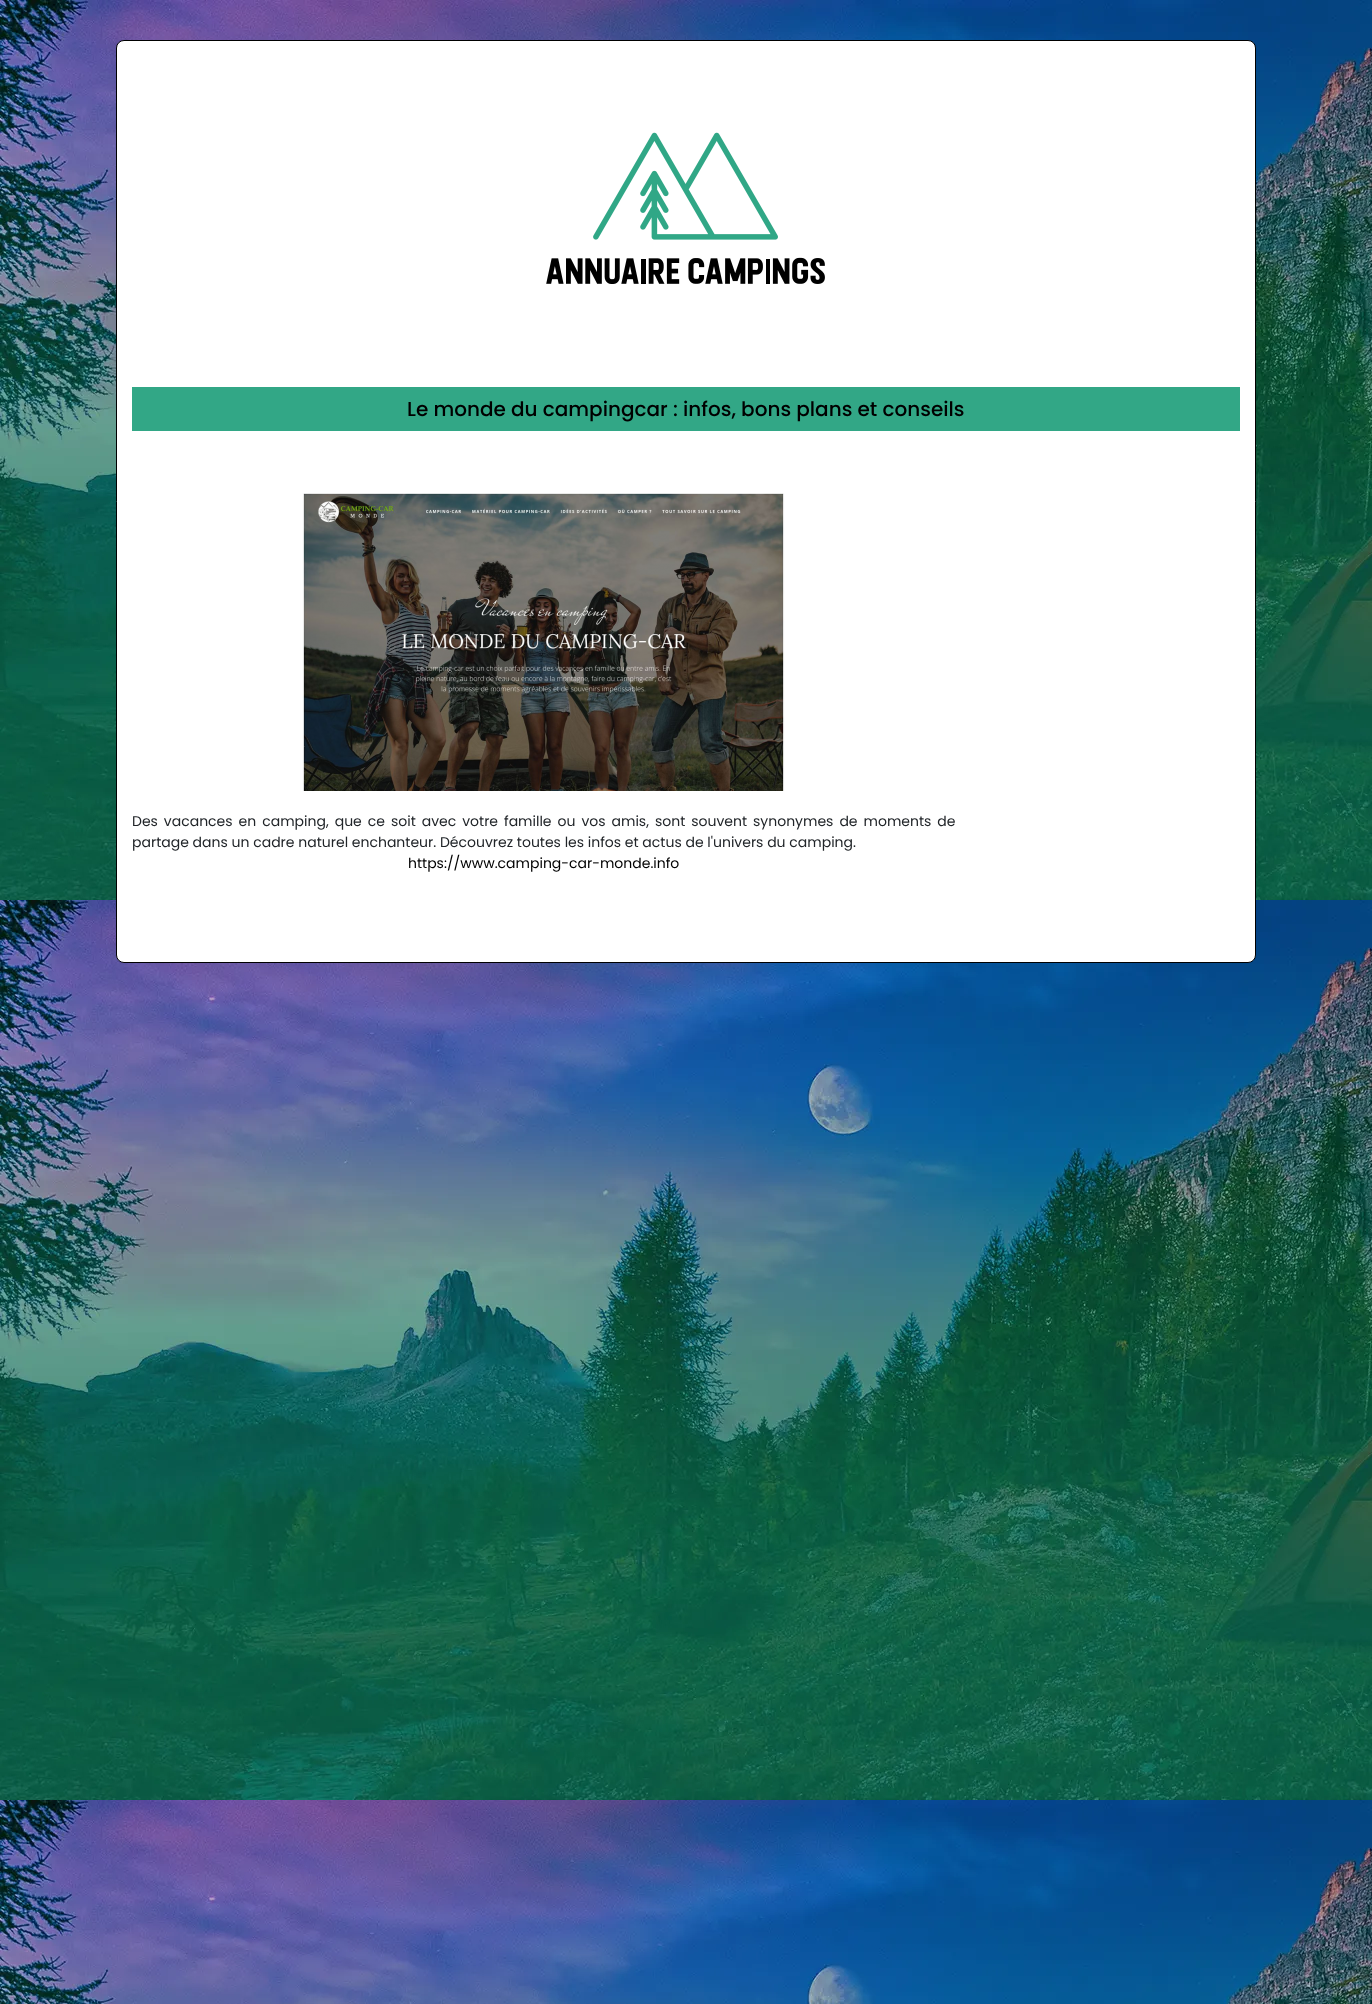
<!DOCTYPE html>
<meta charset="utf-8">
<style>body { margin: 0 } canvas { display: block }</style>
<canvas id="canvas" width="1372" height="2004"></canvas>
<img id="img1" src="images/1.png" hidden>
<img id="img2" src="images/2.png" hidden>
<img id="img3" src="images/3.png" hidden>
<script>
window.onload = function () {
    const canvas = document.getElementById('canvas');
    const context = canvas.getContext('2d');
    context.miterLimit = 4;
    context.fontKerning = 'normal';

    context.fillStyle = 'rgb(255, 255, 255)';
    context.fillRect(0, 0, 1372, 2004);
    context.drawImage(document.getElementById('img1'), 0, 0, 1372, 2004);
    context.beginPath();
    context.roundRect(116.5, 40.5, 1139, 922, 7.5);
    context.fill();
    context.strokeStyle = 'rgb(0, 0, 0)';
    context.stroke();
    context.drawImage(document.getElementById('img2'), 546, 132, 279, 152);
    context.fillStyle = 'rgb(50, 167, 134)';
    context.fillRect(132, 387, 1108, 44);
    context.drawImage(document.getElementById('img3'), 302, 493, 483, 298);
    context.font = '500 20px Poppins';
    context.fillStyle = 'rgb(0, 0, 0)';
    context.fillText('Le monde du campingcar : infos, bons plans et conseils', 407, 416);
    context.wordSpacing = '2.25px';
    context.font = '14px Poppins';
    context.fillStyle = 'rgb(33, 37, 41)';
    context.fillText('Des vacances en camping, que ce soit avec votre famille ou vos amis, sont souvent synonymes de moments de', 132, 826);
    context.wordSpacing = '0px';
    context.fillText('partage dans un cadre naturel enchanteur. Découvrez toutes les infos et actus de l\'univers du camping.', 132, 847);
    context.fillStyle = 'rgb(0, 0, 0)';
    context.fillText('https://www.camping-car-monde.info', 408, 868);
};
</script>
